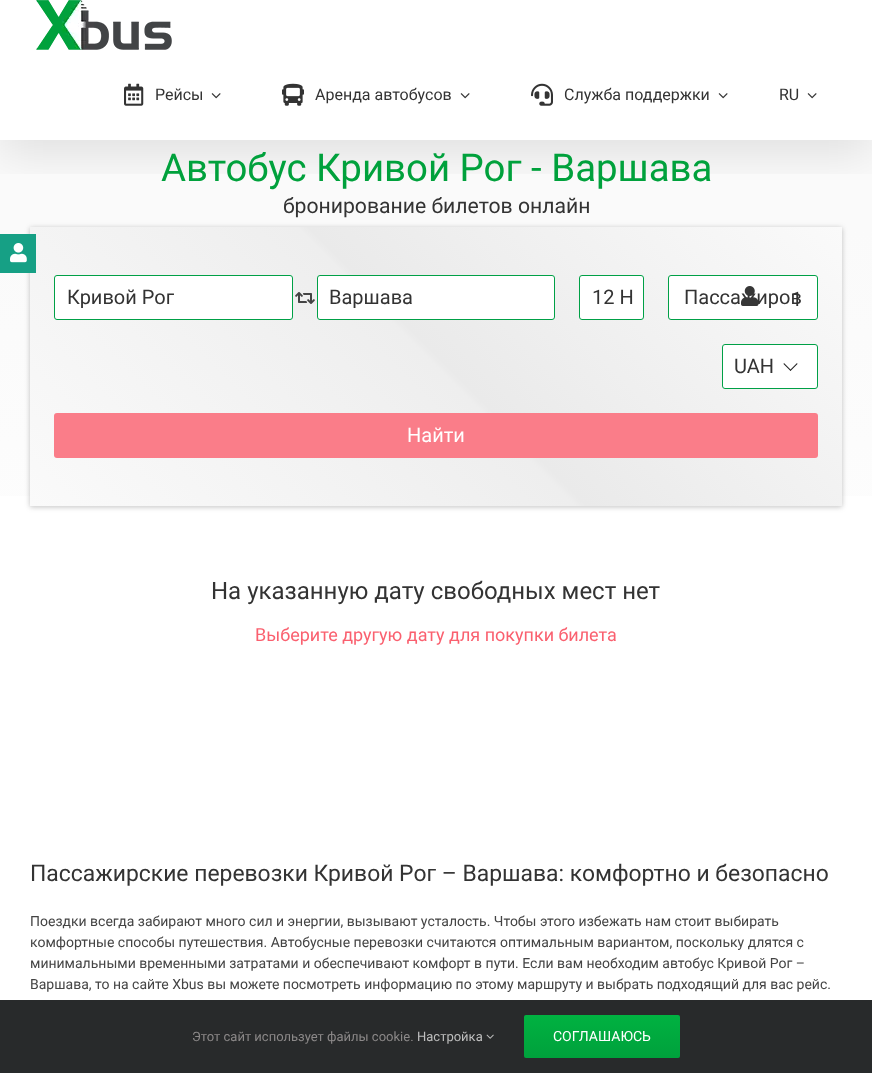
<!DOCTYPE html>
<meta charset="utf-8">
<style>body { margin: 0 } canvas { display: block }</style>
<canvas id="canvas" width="872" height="1073"></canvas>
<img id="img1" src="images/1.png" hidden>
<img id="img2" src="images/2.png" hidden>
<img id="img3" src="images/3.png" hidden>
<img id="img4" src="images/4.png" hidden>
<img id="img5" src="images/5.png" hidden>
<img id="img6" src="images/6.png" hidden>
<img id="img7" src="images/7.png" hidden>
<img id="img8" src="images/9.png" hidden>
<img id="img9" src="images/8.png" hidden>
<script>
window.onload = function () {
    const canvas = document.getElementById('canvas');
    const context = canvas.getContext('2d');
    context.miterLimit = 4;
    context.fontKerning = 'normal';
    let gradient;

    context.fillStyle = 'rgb(255, 255, 255)';
    context.fillRect(0, 0, 872, 1073);
    context.fillStyle = 'rgb(250, 250, 250)';
    context.fillRect(0, 140, 872, 87);
    context.save();
    context.beginPath();
    context.rect(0, 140, 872, 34);
    context.clip();
    context.fillStyle = 'rgba(0, 0, 0, 0.1)';
    context.filter = 'blur(22.5px)';
    context.beginPath();
    context.rect(0, 15, 872, 140);
    context.fill();
    context.filter = 'none';
    context.restore();
    context.drawImage(document.getElementById('img1'), 36, 0, 136, 50);
    context.drawImage(document.getElementById('img2'), 124, 83, 20, 23);
    context.drawImage(document.getElementById('img3'), 211, 93, 10, 6);
    context.drawImage(document.getElementById('img4'), 282, 83, 22, 23);
    context.drawImage(document.getElementById('img3'), 460, 93, 10, 6);
    context.drawImage(document.getElementById('img5'), 531, 83, 22, 23);
    context.drawImage(document.getElementById('img3'), 718, 93, 10, 6);
    context.drawImage(document.getElementById('img3'), 807, 93, 10, 6);
    gradient = context.createLinearGradient(436, 227, 436, 766);
    gradient.addColorStop(0, 'rgb(250, 250, 250)');
    gradient.addColorStop(1, 'rgb(255, 255, 255)');
    context.fillStyle = gradient;
    context.fillRect(0, 227, 872, 269);
    context.fillStyle = 'rgba(0, 0, 0, 0.12)';
    context.filter = 'blur(2px)';
    context.beginPath();
    context.rect(30, 228, 812, 279);
    context.fill();
    context.filter = 'none';
    context.filter = 'blur(3px)';
    context.beginPath();
    context.rect(30, 228, 812, 279);
    context.fill();
    context.filter = 'none';
    gradient = context.createLinearGradient(163, 639, 709, 94);
    gradient.addColorStop(0, 'rgb(250, 250, 250)');
    gradient.addColorStop(0.5, 'rgb(238, 238, 238)');
    gradient.addColorStop(0.51, 'rgb(234, 234, 234)');
    gradient.addColorStop(1, 'rgb(250, 250, 250)');
    context.fillStyle = gradient;
    context.fillRect(30, 227, 812, 279);
    context.fillStyle = 'rgb(22, 160, 133)';
    context.fillRect(0, 234, 36, 39);
    context.drawImage(document.getElementById('img6'), 10, 243, 17, 20);
    context.fillStyle = 'rgb(255, 255, 255)';
    context.beginPath();
    context.roundRect(54.5, 275.5, 238, 44, 2.5);
    context.fill();
    context.strokeStyle = 'rgb(0, 160, 70)';
    context.stroke();
    context.drawImage(document.getElementById('img7'), 295, 292, 20, 12);
    context.beginPath();
    context.roundRect(317.5, 275.5, 237, 44, 2.5);
    context.fill();
    context.stroke();
    context.beginPath();
    context.roundRect(579.5, 275.5, 64, 44, 2.5);
    context.fill();
    context.stroke();
    context.beginPath();
    context.roundRect(668.5, 275.5, 149, 44, 2.5);
    context.fill();
    context.stroke();
    context.beginPath();
    context.roundRect(722.5, 344.5, 95, 44, 2.5);
    context.fill();
    context.stroke();
    context.fillStyle = 'rgb(34, 34, 34)';
    context.beginPath();
    context.moveTo(790, 370);
    context.lineTo(797, 363);
    context.lineTo(797.5, 364);
    context.lineTo(790.5, 371);
    context.closePath();
    context.fill();
    context.beginPath();
    context.moveTo(783.5, 364);
    context.lineTo(784, 363);
    context.lineTo(791, 370);
    context.lineTo(790.5, 371);
    context.closePath();
    context.fill();
    context.fillStyle = 'rgb(250, 125, 137)';
    context.beginPath();
    context.roundRect(54, 413, 764, 45, 3);
    context.fill();
    context.fillStyle = 'rgb(40, 42, 43)';
    context.fillRect(0, 1000, 872, 73);
    context.drawImage(document.getElementById('img8'), 486, 1034, 8, 5);
    gradient = context.createLinearGradient(602, 1015, 602, 1058);
    gradient.addColorStop(0, 'rgb(0, 178, 65)');
    gradient.addColorStop(1, 'rgb(0, 161, 60)');
    context.fillStyle = gradient;
    context.beginPath();
    context.roundRect(524, 1015, 156, 43, 2);
    context.fill();
    context.font = '16px Roboto';
    context.fillStyle = 'rgb(51, 51, 51)';
    context.fillText('Рейсы', 155, 100);
    context.fillText('Аренда автобусов', 315, 100);
    context.fillText('Служба поддержки', 564, 100);
    context.fillText('RU', 779, 100);
    context.font = '38.4px Roboto';
    context.fillStyle = 'rgb(0, 161, 60)';
    context.fillText('Автобус Кривой Рог - Варшава', 161, 181);
    context.font = '21.2px Roboto';
    context.fillStyle = 'rgb(51, 51, 51)';
    context.fillText('бронирование билетов онлайн', 283, 213);
    context.font = '20px Roboto';
    context.fillText('Кривой Рог', 67, 304);
    context.fillText('Варшава', 329, 304);
    context.fillText('12 Н', 592, 304);
    context.fillText('Пассажиров', 684, 304);
    context.drawImage(document.getElementById('img9'), 741, 286, 18, 20);
    context.fillText('1', 791, 306);
    context.fillText('UAH', 734, 373);
    context.fillStyle = 'rgb(255, 255, 255)';
    context.fillText('Найти', 407, 442);
    context.font = '24px Roboto';
    context.fillStyle = 'rgb(51, 51, 51)';
    context.fillText('На указанную дату свободных мест нет', 211, 599);
    context.font = '18px Roboto';
    context.fillStyle = 'rgb(250, 96, 111)';
    context.fillText('Выберите другую дату для покупки билета', 255, 641);
    context.font = '22.9px Roboto';
    context.fillStyle = 'rgb(51, 51, 51)';
    context.fillText('Пассажирские перевозки Кривой Рог – Варшава: комфортно и безопасно', 30, 881);
    context.font = '14px Roboto';
    context.fillStyle = 'rgb(68, 68, 68)';
    context.fillText('Поездки всегда забирают много сил и энергии, вызывают усталость. Чтобы этого избежать нам стоит выбирать', 30, 926);
    context.fillText('комфортные способы путешествия. Автобусные перевозки считаются оптимальным вариантом, поскольку длятся с', 30, 947);
    context.fillText('минимальными временными затратами и обеспечивают комфорт в пути. Если вам необходим автобус Кривой Рог –', 30, 968);
    context.fillText('Варшава, то на сайте Xbus вы можете посмотреть информацию по этому маршруту и выбрать подходящий для вас рейс.', 30, 989);
    context.font = '13px Roboto';
    context.fillStyle = 'rgb(140, 137, 137)';
    context.fillText('Этот сайт использует файлы cookie.', 192, 1041);
    context.fillStyle = 'rgb(191, 191, 191)';
    context.fillText('Настройка', 417, 1041);
    context.font = '14px Roboto';
    context.fillStyle = 'rgb(255, 255, 255)';
    context.fillText('СОГЛАШАЮСЬ', 553, 1041);
};
</script>
